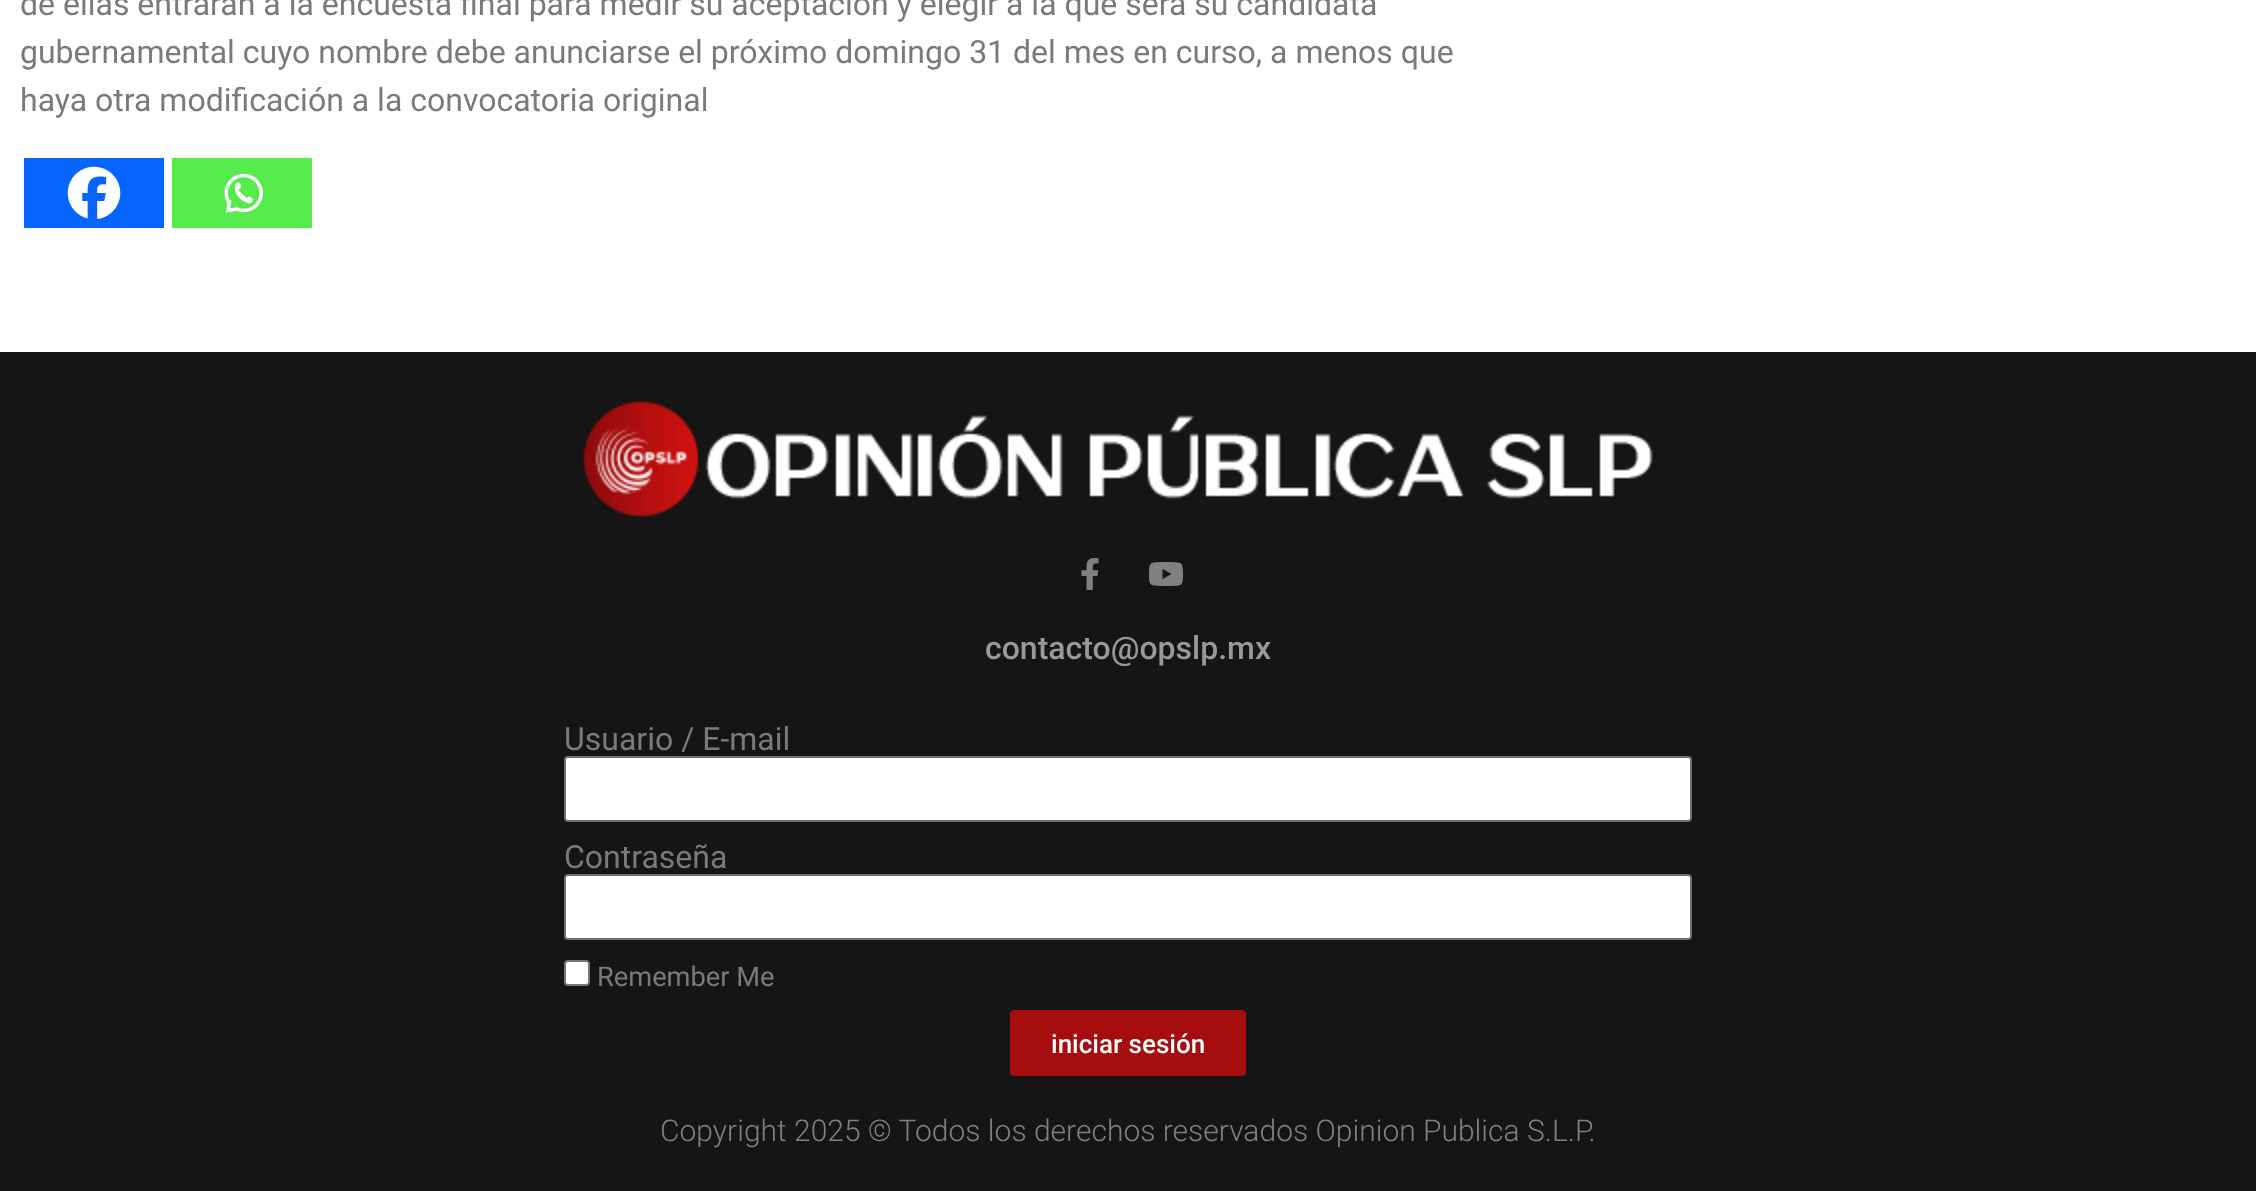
<!DOCTYPE html>
<meta charset="utf-8">
<style>body { margin: 0 } canvas { display: block }</style>
<canvas id="canvas" width="2256" height="1191"></canvas>
<img id="img1" src="images/1.png" hidden>
<img id="img2" src="images/2.png" hidden>
<img id="img3" src="images/3.png" hidden>
<img id="img4" src="images/4.png" hidden>
<img id="img5" src="images/5.png" hidden>
<script>
window.onload = function () {
    const canvas = document.getElementById('canvas');
    const context = canvas.getContext('2d');
    context.miterLimit = 4;
    context.fontKerning = 'normal';

    context.fillStyle = 'rgb(255, 255, 255)';
    context.fillRect(0, 0, 2256, 1191);
    context.fillStyle = 'rgb(7, 101, 254)';
    context.fillRect(24, 158, 140, 70);
    context.drawImage(document.getElementById('img1'), 67, 166, 54, 53);
    context.fillStyle = 'rgb(85, 235, 76)';
    context.fillRect(172, 158, 140, 70);
    context.drawImage(document.getElementById('img2'), 224, 173, 39, 40);
    context.fillStyle = 'rgb(21, 21, 21)';
    context.fillRect(0, 352, 2256, 839);
    context.drawImage(document.getElementById('img3'), 583, 401, 1070, 116);
    context.drawImage(document.getElementById('img4'), 1081, 558, 18, 32);
    context.drawImage(document.getElementById('img5'), 1148, 562, 36, 24);
    context.fillStyle = 'rgb(255, 255, 255)';
    context.beginPath();
    context.roundRect(565, 757, 1126, 64, 3);
    context.fill();
    context.strokeStyle = 'rgb(105, 114, 125)';
    context.lineWidth = 2;
    context.stroke();
    context.beginPath();
    context.roundRect(565, 875, 1126, 64, 3);
    context.fill();
    context.stroke();
    context.beginPath();
    context.roundRect(565, 961, 24, 24, 3);
    context.fill();
    context.strokeStyle = 'rgb(118, 118, 118)';
    context.stroke();
    context.fillStyle = 'rgb(165, 13, 15)';
    context.beginPath();
    context.roundRect(1010, 1010, 236, 66, 4);
    context.fill();
    context.font = '32px Roboto';
    context.fillStyle = 'rgb(122, 122, 122)';
    context.fillText('de ellas entrarán a la encuesta final para medir su aceptación y elegir a la que será su candidata', 20, 15);
    context.fillText('gubernamental cuyo nombre debe anunciarse el próximo domingo 31 del mes en curso, a menos que', 20, 63);
    context.fillText('haya otra modificación a la convocatoria original', 20, 111);
    context.font = '500 32px Roboto';
    context.fillStyle = 'rgb(153, 153, 153)';
    context.fillText('contacto@opslp.mx', 985, 659);
    context.font = '32px Roboto';
    context.fillStyle = 'rgb(122, 122, 122)';
    context.fillText('Usuario / E-mail', 564, 750);
    context.fillText('Contraseña', 564, 868);
    context.font = '27.25px Roboto';
    context.fillText('Remember Me', 597, 986);
    context.font = '500 26px Roboto';
    context.fillStyle = 'rgb(255, 255, 255)';
    context.fillText('iniciar sesión', 1051, 1053);
    context.font = '300 30px Roboto';
    context.fillStyle = 'rgb(128, 128, 128)';
    context.fillText('Copyright 2025 © Todos los derechos reservados Opinion Publica S.L.P.', 660, 1141);
};
</script>
